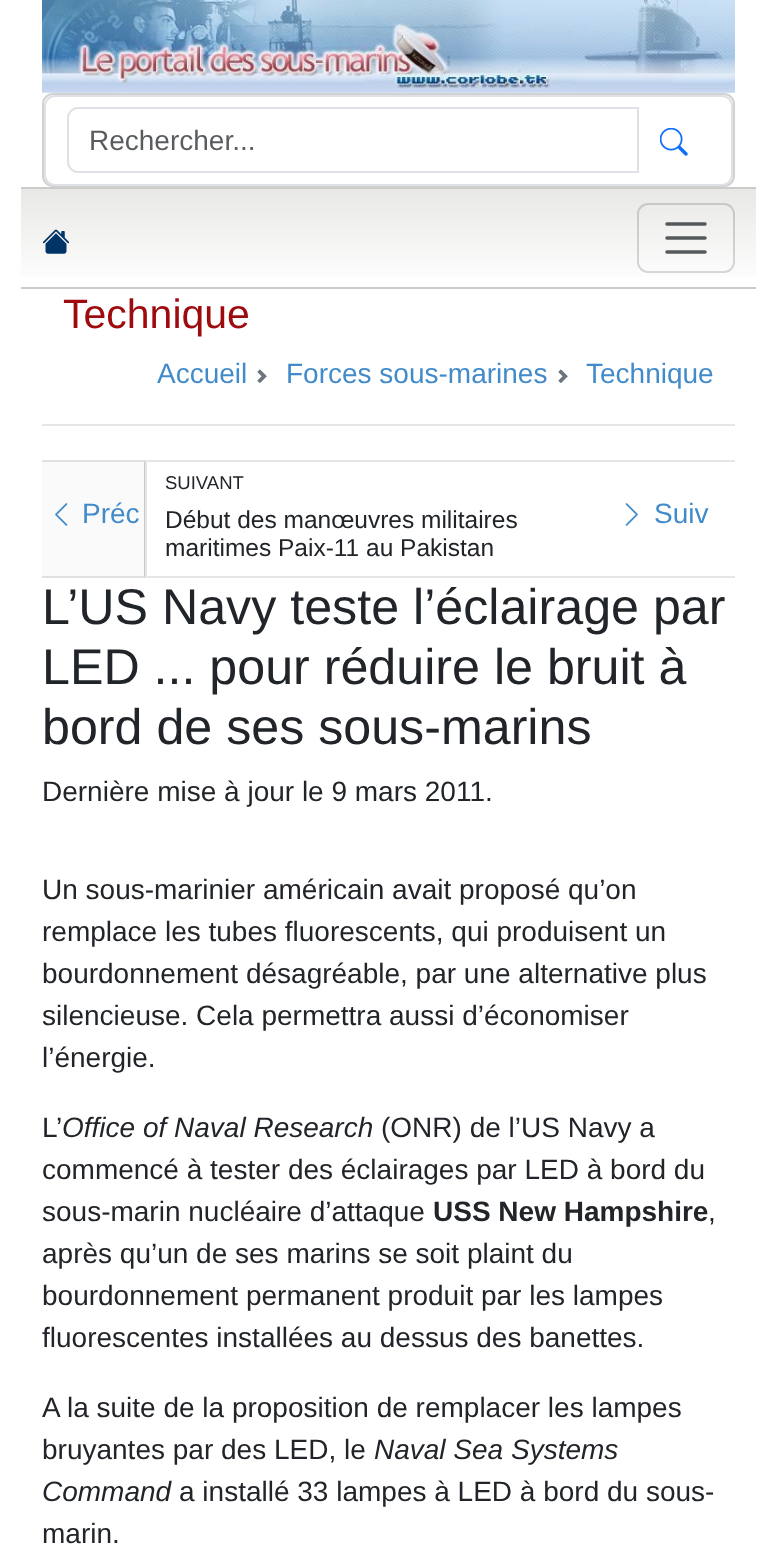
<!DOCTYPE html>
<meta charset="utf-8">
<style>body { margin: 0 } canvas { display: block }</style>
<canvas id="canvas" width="776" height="1549"></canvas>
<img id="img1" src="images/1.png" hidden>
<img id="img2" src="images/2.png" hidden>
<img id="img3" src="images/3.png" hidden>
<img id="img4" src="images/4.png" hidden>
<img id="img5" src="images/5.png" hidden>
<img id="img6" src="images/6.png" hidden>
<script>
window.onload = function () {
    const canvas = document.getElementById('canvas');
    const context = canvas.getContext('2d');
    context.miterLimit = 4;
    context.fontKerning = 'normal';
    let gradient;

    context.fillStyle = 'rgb(255, 255, 255)';
    context.fillRect(0, 0, 776, 1549);
    context.drawImage(document.getElementById('img1'), 42, 0, 693, 93);
    context.beginPath();
    context.roundRect(43, 94, 691, 92, 10);
    context.strokeStyle = 'rgb(210, 210, 210)';
    context.lineWidth = 2;
    context.stroke();
    context.beginPath();
    context.roundRect(45, 96, 687, 89, 10);
    context.strokeStyle = 'rgb(222, 226, 230)';
    context.stroke();
    context.beginPath();
    context.roundRect(68, 108, 570, 64, [10, 0, 0, 10]);
    context.stroke();
    context.drawImage(document.getElementById('img2'), 660, 128, 28, 28);
    gradient = context.createLinearGradient(389, 189, 389, 287);
    gradient.addColorStop(0, 'rgb(232, 232, 230)');
    gradient.addColorStop(1, 'rgb(255, 255, 255)');
    context.fillStyle = gradient;
    context.fillRect(21, 189, 735, 88);
    context.fillStyle = 'rgb(204, 204, 202)';
    context.fillRect(21, 187, 735, 2);
    context.fillRect(21, 287, 735, 2);
    context.drawImage(document.getElementById('img3'), 42, 229, 28, 25);
    context.beginPath();
    context.roundRect(638, 204, 96, 68, 10);
    context.strokeStyle = 'rgba(0, 0, 0, 0.15)';
    context.stroke();
    context.beginPath();
    context.moveTo(667, 224);
    context.lineTo(705, 224);
    context.moveTo(667, 238);
    context.lineTo(705, 238);
    context.moveTo(667, 252);
    context.lineTo(705, 252);
    context.strokeStyle = 'rgba(33, 37, 41, 0.75)';
    context.lineWidth = 3.5;
    context.lineCap = 'round';
    context.stroke();
    context.fillStyle = 'rgb(230, 230, 230)';
    context.fillRect(42, 424, 693, 2);
    context.drawImage(document.getElementById('img4'), 257, 369, 10, 14);
    context.drawImage(document.getElementById('img4'), 558, 369, 10, 14);
    context.fillStyle = 'rgb(250, 250, 250)';
    context.fillRect(42, 460, 103, 118);
    context.fillStyle = 'rgb(225, 225, 225)';
    context.beginPath();
    context.moveTo(42, 460);
    context.lineTo(145, 460);
    context.lineTo(144, 462);
    context.lineTo(42, 462);
    context.closePath();
    context.fill();
    context.fillStyle = 'rgba(0, 0, 0, 0.2)';
    context.beginPath();
    context.moveTo(145, 460);
    context.lineTo(145, 578);
    context.lineTo(144, 576);
    context.lineTo(144, 462);
    context.closePath();
    context.fill();
    context.fillStyle = 'rgba(0, 0, 0, 0.1)';
    context.beginPath();
    context.moveTo(145, 578);
    context.lineTo(42, 578);
    context.lineTo(42, 576);
    context.lineTo(144, 576);
    context.closePath();
    context.fill();
    context.drawImage(document.getElementById('img5'), 55, 503, 13, 23);
    context.fillStyle = 'rgb(230, 230, 230)';
    context.beginPath();
    context.moveTo(145, 460);
    context.lineTo(735, 460);
    context.lineTo(735, 462);
    context.lineTo(147, 462);
    context.closePath();
    context.fill();
    context.beginPath();
    context.moveTo(735, 578);
    context.lineTo(145, 578);
    context.lineTo(147, 576);
    context.lineTo(735, 576);
    context.closePath();
    context.fill();
    context.fillStyle = 'rgba(0, 0, 0, 0.1)';
    context.beginPath();
    context.moveTo(145, 578);
    context.lineTo(145, 460);
    context.lineTo(147, 462);
    context.lineTo(147, 576);
    context.closePath();
    context.fill();
    context.drawImage(document.getElementById('img6'), 625, 503, 13, 23);
    context.font = '28px Liberation Sans';
    context.fillStyle = 'rgb(89, 92, 95)';
    context.fillText('Rechercher...', 89, 150);
    context.font = '41px Liberation Sans';
    context.fillStyle = 'rgb(158, 11, 15)';
    context.fillText('Technique', 63, 328);
    context.font = '28px Liberation Sans';
    context.fillStyle = 'rgb(66, 139, 202)';
    context.fillText('Accueil', 157, 383);
    context.fillText('Forces sous-marines', 286, 383);
    context.fillText('Technique', 586, 383);
    context.fillText('Préc', 82, 523);
    context.font = '18.5px Liberation Sans';
    context.fillStyle = 'rgb(33, 37, 41)';
    context.fillText('SUIVANT', 165, 489);
    context.font = '24.5px Liberation Sans';
    context.fillText('Début des manœuvres militaires', 165, 528);
    context.fillText('maritimes Paix-11 au Pakistan', 165, 556);
    context.font = '28px Liberation Sans';
    context.fillStyle = 'rgb(66, 139, 202)';
    context.fillText('Suiv', 654, 523);
    context.font = '50.2px Liberation Sans';
    context.fillStyle = 'rgb(33, 37, 41)';
    context.fillText('L’US Navy teste l’éclairage par', 42, 624);
    context.fillText('LED ... pour réduire le bruit à', 42, 684);
    context.fillText('bord de ses sous-marins', 42, 744);
    context.font = '28px Liberation Sans';
    context.fillText('Dernière mise à jour le 9 mars 2011.', 42, 801);
    context.fillText('Un sous-marinier américain avait proposé qu’on', 42, 899);
    context.fillText('remplace les tubes fluorescents, qui produisent un', 42, 941);
    context.fillText('bourdonnement désagréable, par une alternative plus', 42, 983);
    context.fillText('silencieuse. Cela permettra aussi d’économiser', 42, 1025);
    context.fillText('l’énergie.', 42, 1067);
    context.fillText('L’', 42, 1137);
    context.font = 'italic 28px Liberation Sans';
    context.fillText('Office of Naval Research', 62, 1137);
    context.font = '28px Liberation Sans';
    context.fillText('(ONR) de l’US Navy a', 381, 1137);
    context.fillText('commencé à tester des éclairages par LED à bord du', 42, 1179);
    context.fillText('sous-marin nucléaire d’attaque', 42, 1221);
    context.font = 'bold 28px Liberation Sans';
    context.fillText('USS New Hampshire', 433, 1221);
    context.font = '28px Liberation Sans';
    context.fillText(',', 708, 1221);
    context.fillText('après qu’un de ses marins se soit plaint du', 42, 1263);
    context.fillText('bourdonnement permanent produit par les lampes', 42, 1305);
    context.fillText('fluorescentes installées au dessus des banettes.', 42, 1347);
    context.fillText('A la suite de la proposition de remplacer les lampes', 42, 1417);
    context.fillText('bruyantes par des LED, le', 42, 1459);
    context.font = 'italic 28px Liberation Sans';
    context.fillText('Naval Sea Systems', 374, 1459);
    context.fillText('Command', 42, 1501);
    context.font = '28px Liberation Sans';
    context.fillText('a installé 33 lampes à LED à bord du sous-', 179, 1501);
    context.fillText('marin.', 42, 1543);
};
</script>
